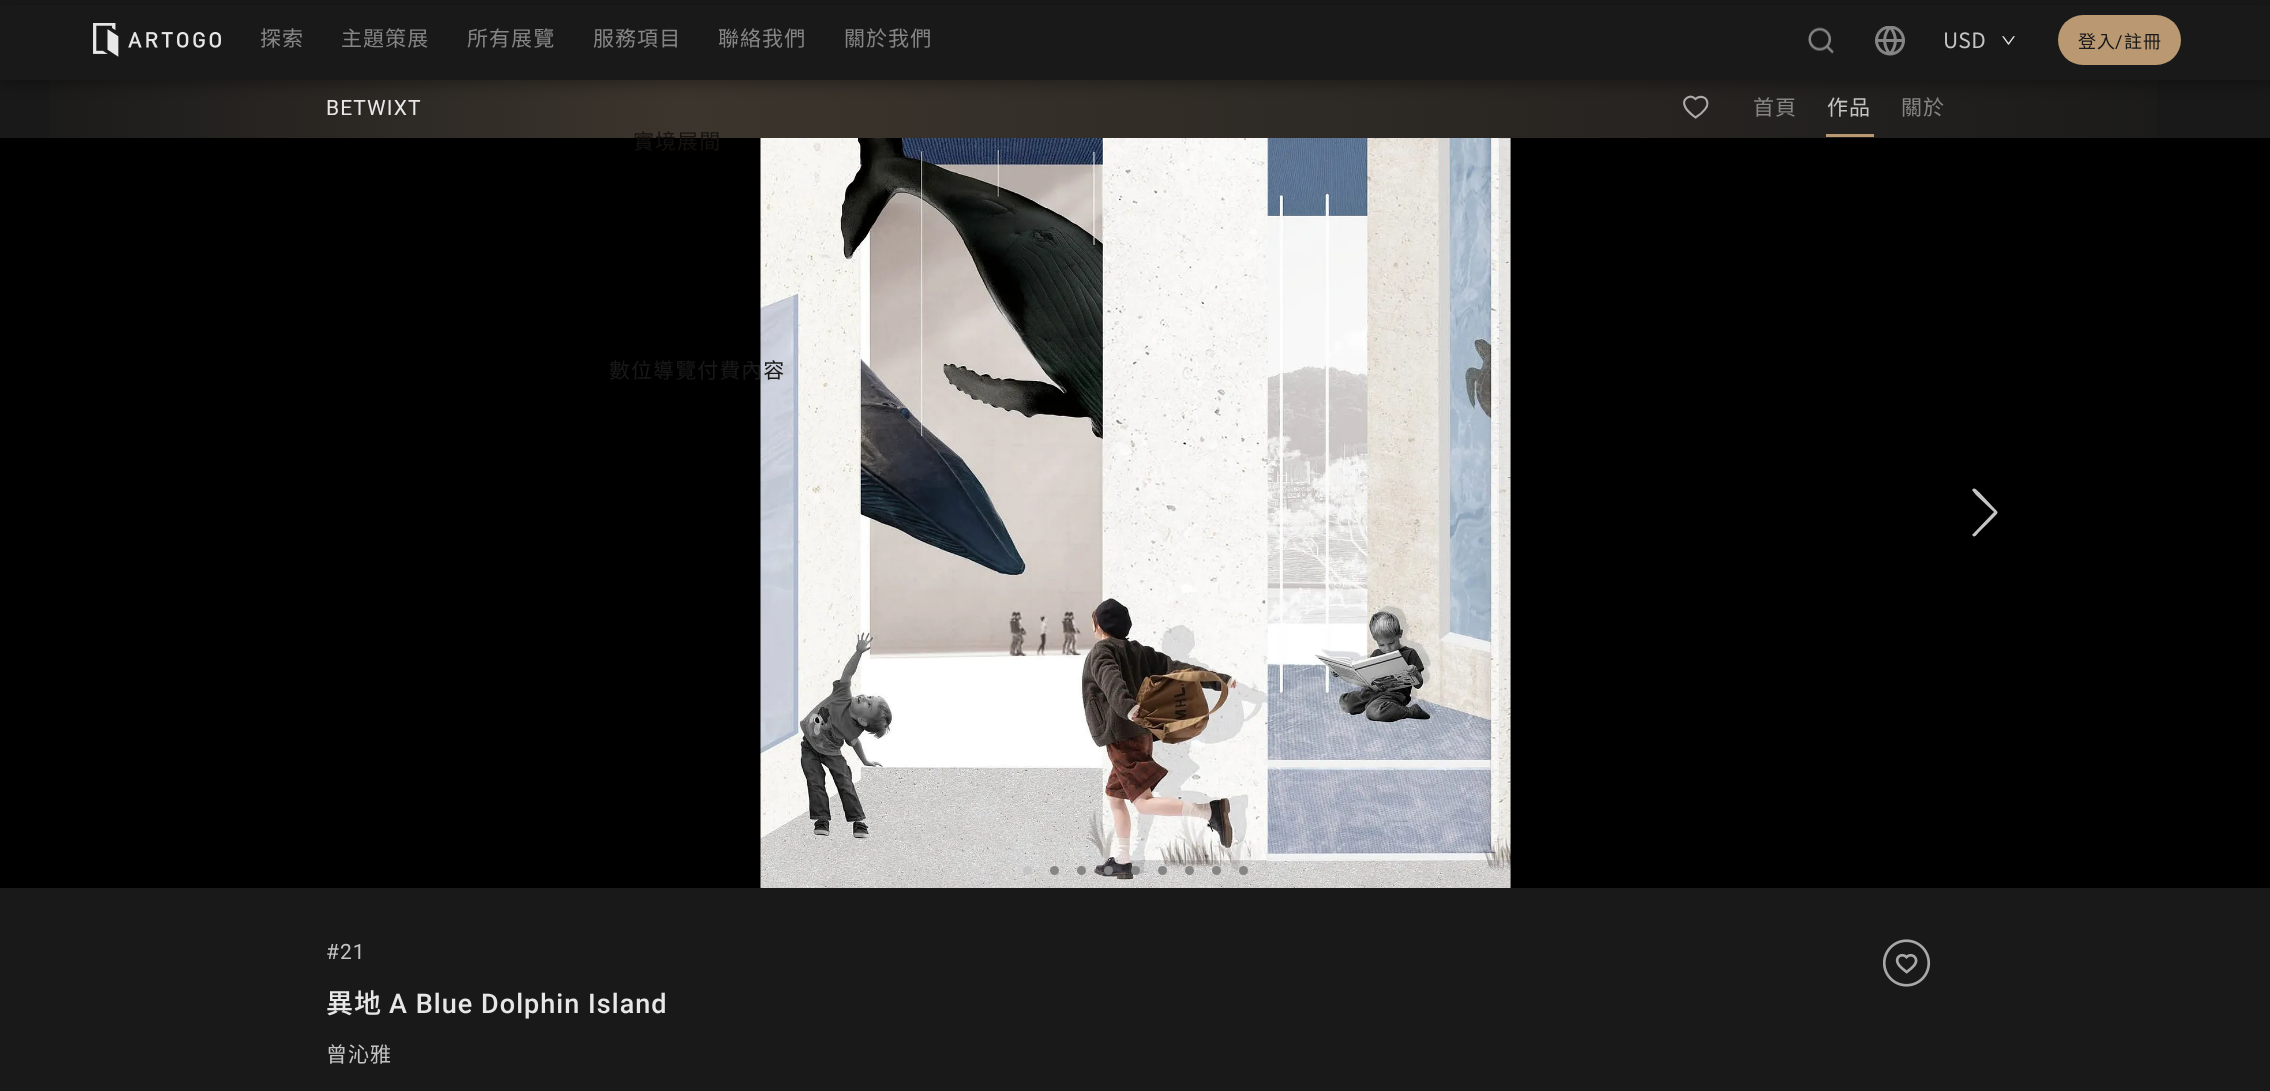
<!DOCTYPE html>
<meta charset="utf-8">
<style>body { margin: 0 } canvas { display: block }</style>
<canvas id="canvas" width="2270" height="1091"></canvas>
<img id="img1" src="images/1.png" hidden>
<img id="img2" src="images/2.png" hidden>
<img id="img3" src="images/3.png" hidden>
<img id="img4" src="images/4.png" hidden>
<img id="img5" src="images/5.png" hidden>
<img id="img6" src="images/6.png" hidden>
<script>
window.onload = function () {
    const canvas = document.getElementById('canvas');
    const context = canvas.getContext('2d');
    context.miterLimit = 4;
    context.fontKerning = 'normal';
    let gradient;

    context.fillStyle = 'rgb(25, 25, 25)';
    context.fillRect(0, 0, 2270, 1091);
    gradient = context.createLinearGradient(0, 108, 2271, 108);
    gradient.addColorStop(0, 'rgb(25, 25, 25)');
    gradient.addColorStop(0.3, 'rgb(60, 53, 45)');
    gradient.addColorStop(1, 'rgb(25, 25, 25)');
    context.fillStyle = gradient;
    context.fillRect(49, 80, 2108, 58);
    context.beginPath();
    context.moveTo(1705.5, 98.5);
    context.bezierCurveTo(1702.5, 96, 1698, 96.5, 1695.5, 99);
    context.bezierCurveTo(1690, 93.5, 1681.5, 99, 1685, 106.5);
    context.bezierCurveTo(1687, 111.5, 1692, 114.5, 1695.5, 117.5);
    context.bezierCurveTo(1701, 114, 1712, 105.5, 1705.5, 98.5);
    context.closePath();
    context.strokeStyle = 'rgb(173, 172, 171)';
    context.lineWidth = 2.1;
    context.stroke();
    context.fillStyle = 'rgba(0, 0, 0, 0.25)';
    context.filter = 'blur(6px)';
    context.beginPath();
    context.rect(0, 6, 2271, 80);
    context.fill();
    context.filter = 'none';
    context.fillStyle = 'rgb(25, 25, 25)';
    context.fillRect(0, 5, 2270, 75);
    context.drawImage(document.getElementById('img1'), 93, 23, 128, 34);
    context.drawImage(document.getElementById('img2'), 1808, 27, 26, 27);
    context.drawImage(document.getElementById('img3'), 1875, 26, 30, 30);
    context.drawImage(document.getElementById('img4'), 2002, 36, 13, 9);
    context.fillStyle = 'rgb(186, 153, 114)';
    context.beginPath();
    context.roundRect(2058, 15, 123, 50, 25);
    context.fill();
    context.fillRect(1826, 134, 48, 3);
    context.fillStyle = 'rgb(0, 0, 0)';
    context.fillRect(0, 138, 2270, 750);
    context.drawImage(document.getElementById('img5'), 760, 138, 751, 750);
    context.fillStyle = 'rgb(196, 196, 196)';
    context.beginPath();
    context.moveTo(1973, 536);
    context.bezierCurveTo(1972, 535, 1972, 534, 1973, 534);
    context.lineTo(1994, 512);
    context.lineTo(1976, 495);
    context.lineTo(1972, 490);
    context.lineTo(1973, 489);
    context.bezierCurveTo(1975, 487, 1978, 492, 1979, 492);
    context.lineTo(1993, 507);
    context.bezierCurveTo(1999, 513, 1999, 512, 1993, 518);
    context.lineTo(1979, 532);
    context.bezierCurveTo(1978, 533, 1975, 538, 1973, 536);
    context.closePath();
    context.fill();
    context.beginPath();
    context.arc(1027.5, 870.5, 4.5, 0, 2 * Math.PI);
    context.fill();
    context.fillStyle = 'rgb(133, 133, 133)';
    context.beginPath();
    context.arc(1054.5, 870.5, 4.5, 0, 2 * Math.PI);
    context.fill();
    context.beginPath();
    context.arc(1081.5, 870.5, 4.5, 0, 2 * Math.PI);
    context.fill();
    context.beginPath();
    context.arc(1108.5, 870.5, 4.5, 0, 2 * Math.PI);
    context.fill();
    context.beginPath();
    context.arc(1135.5, 870.5, 4.5, 0, 2 * Math.PI);
    context.fill();
    context.beginPath();
    context.arc(1162.5, 870.5, 4.5, 0, 2 * Math.PI);
    context.fill();
    context.beginPath();
    context.arc(1189.5, 870.5, 4.5, 0, 2 * Math.PI);
    context.fill();
    context.beginPath();
    context.arc(1216.5, 870.5, 4.5, 0, 2 * Math.PI);
    context.fill();
    context.beginPath();
    context.arc(1243.5, 870.5, 4.5, 0, 2 * Math.PI);
    context.fill();
    context.drawImage(document.getElementById('img6'), 1883, 939, 48, 48);
    context.letterSpacing = '1.05px';
    context.font = '21px Noto Sans TC';
    context.fillText('探索', 260, 46);
    context.fillText('主題策展', 341, 46);
    context.fillText('所有展覽', 467, 46);
    context.fillText('服務項目', 593, 46);
    context.font = '21px Noto Sans CJK TC';
    context.fillStyle = 'rgb(21, 18, 16)';
    context.fillText('實境展間', 633, 149);
    context.fillStyle = 'rgb(25, 25, 25)';
    context.fillText('數位導覽付費內容', 609, 378);
    context.font = '21px Noto Sans TC';
    context.fillStyle = 'rgb(133, 133, 133)';
    context.fillText('聯絡我們', 718, 46);
    context.fillText('關於我們', 844, 46);
    context.letterSpacing = '0.5px';
    context.fillStyle = 'rgb(196, 196, 196)';
    context.fillText('USD', 1943, 48);
    context.letterSpacing = '1px';
    context.font = '18px Noto Sans TC';
    context.fillStyle = 'rgb(25, 25, 25)';
    context.fillText('登入', 2078, 48);
    context.font = '18px Roboto';
    context.fillText('/', 2115, 48);
    context.font = '18px Noto Sans TC';
    context.fillText('註冊', 2124, 48);
    context.letterSpacing = '1.05px';
    context.font = '21px Roboto';
    context.fillStyle = 'rgb(231, 231, 231)';
    context.fillText('BETWIXT', 326, 115);
    context.font = '21px Noto Sans TC';
    context.fillStyle = 'rgb(133, 133, 133)';
    context.fillText('首頁', 1753, 115);
    context.fillStyle = 'rgb(196, 196, 196)';
    context.fillText('作品', 1827, 115);
    context.fillStyle = 'rgb(133, 133, 133)';
    context.fillText('關於', 1901, 115);
    context.font = '21px Roboto';
    context.fillStyle = 'rgb(196, 196, 196)';
    context.fillText('#21', 326, 959);
    context.font = '500 27px Noto Sans TC';
    context.fillStyle = 'rgb(231, 231, 231)';
    context.fillText('異地', 326, 1013);
    context.font = '500 27px Roboto';
    context.fillText('A Blue Dolphin Island', 389, 1013);
    context.font = '21px Noto Sans TC';
    context.fillStyle = 'rgb(196, 196, 196)';
    context.fillText('曾沁雅', 326, 1062);
};
</script>
